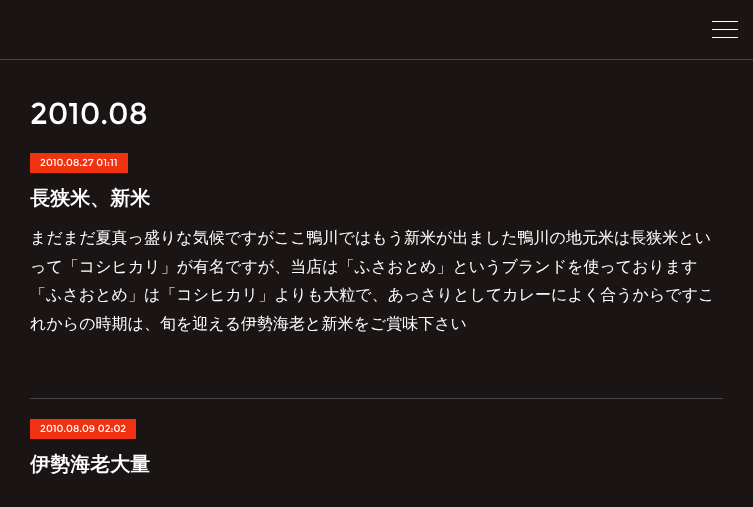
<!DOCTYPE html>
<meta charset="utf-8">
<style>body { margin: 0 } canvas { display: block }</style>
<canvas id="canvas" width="753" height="507"></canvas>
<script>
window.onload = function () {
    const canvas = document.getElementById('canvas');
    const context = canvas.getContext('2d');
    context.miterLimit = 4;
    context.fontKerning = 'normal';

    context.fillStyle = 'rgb(26, 20, 20)';
    context.fillRect(0, 0, 753, 507);
    context.fillStyle = 'rgb(68, 68, 68)';
    context.fillRect(0, 59, 753, 1);
    context.fillStyle = 'rgb(255, 255, 255)';
    context.fillRect(712, 21, 26, 1);
    context.fillRect(712, 29, 26, 1);
    context.fillRect(712, 37, 26, 1);
    context.fillStyle = 'rgb(240, 50, 17)';
    context.fillRect(30, 153, 98, 20);
    context.fillStyle = 'rgb(68, 68, 68)';
    context.fillRect(30, 398, 693, 1);
    context.fillStyle = 'rgb(240, 50, 17)';
    context.fillRect(30, 419, 106, 20);
    context.font = '30px Montserrat';
    context.fillStyle = 'rgb(255, 255, 255)';
    context.fillText('2010', 30, 124);
    context.fillText('.', 100, 124);
    context.fillText('08', 108, 124);
    context.font = '10px Montserrat';
    context.fillText('2010.08.27 01:11', 40, 166);
    context.font = 'bold 20px WenQuanYi Zen Hei';
    context.fillText('長狭米、新米', 30, 205);
    context.font = '500 16px WenQuanYi Zen Hei';
    context.fillText('まだまだ夏真っ盛りな気候ですがここ鴨川ではもう新米が出ました鴨川の地元米は長狭米とい', 30, 243);
    context.fillText('って「コシヒカリ」が有名ですが、当店は「ふさおとめ」というブランドを使っております', 30, 272);
    context.fillText('「ふさおとめ」は「コシヒカリ」よりも大粒で、あっさりとしてカレーによく合うからですこ', 30, 300);
    context.fillText('れからの時期は、旬を迎える伊勢海老と新米をご賞味下さい', 30, 329);
    context.font = '10px Montserrat';
    context.fillText('2010.08.09 02:02', 40, 432);
    context.font = 'bold 20px WenQuanYi Zen Hei';
    context.fillText('伊勢海老大量', 30, 471);
};
</script>
